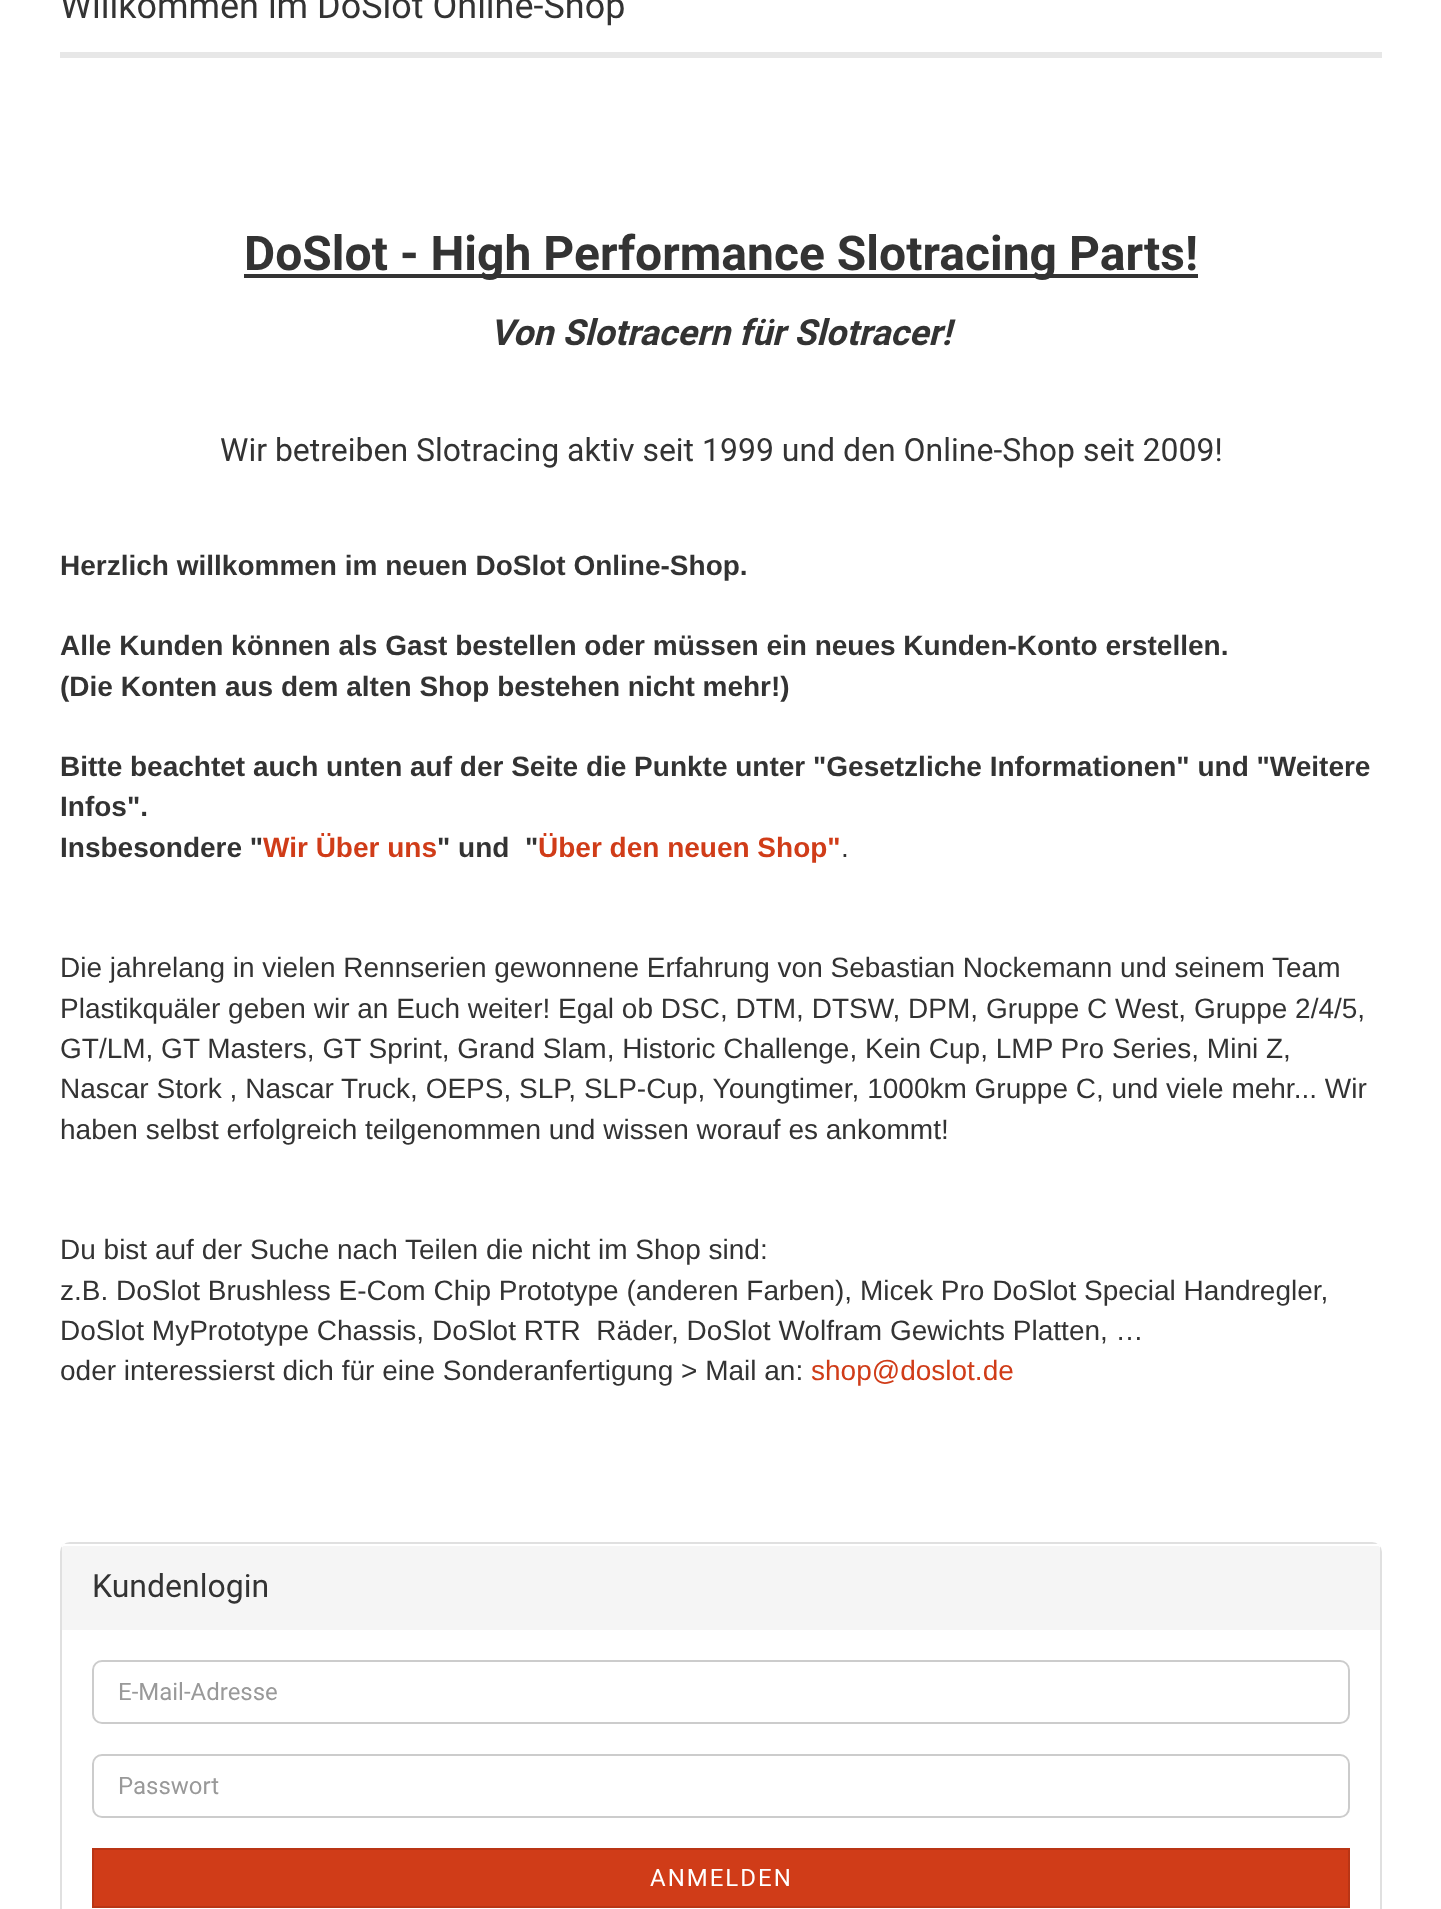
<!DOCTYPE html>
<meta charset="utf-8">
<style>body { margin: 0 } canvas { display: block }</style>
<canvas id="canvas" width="1441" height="1909"></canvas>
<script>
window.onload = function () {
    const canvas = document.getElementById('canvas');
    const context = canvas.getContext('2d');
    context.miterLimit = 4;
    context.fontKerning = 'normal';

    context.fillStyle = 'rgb(255, 255, 255)';
    context.fillRect(0, 0, 1441, 1909);
    context.fillStyle = 'rgb(231, 231, 231)';
    context.fillRect(60, 52, 1322, 6);
    context.fillStyle = 'rgb(51, 51, 51)';
    context.fillRect(244, 274, 954, 4);
    context.beginPath();
    context.roundRect(61, 1543, 1320, 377, 9);
    context.strokeStyle = 'rgb(224, 224, 224)';
    context.lineWidth = 2;
    context.stroke();
    context.fillStyle = 'rgb(245, 245, 245)';
    context.beginPath();
    context.roundRect(62, 1544, 1318, 86, [2, 2, 0, 0]);
    context.fill();
    context.fillStyle = 'rgb(255, 255, 255)';
    context.beginPath();
    context.moveTo(64, 1546);
    context.lineTo(1378, 1546);
    context.bezierCurveTo(1379, 1546, 1380, 1547, 1380, 1548);
    context.bezierCurveTo(1380, 1546, 1380, 1544, 1378, 1544);
    context.lineTo(64, 1544);
    context.bezierCurveTo(62, 1544, 62, 1546, 62, 1548);
    context.bezierCurveTo(62, 1547, 63, 1546, 64, 1546);
    context.closePath();
    context.fill();
    context.beginPath();
    context.roundRect(93, 1661, 1256, 62, 9);
    context.strokeStyle = 'rgb(204, 204, 204)';
    context.stroke();
    context.beginPath();
    context.roundRect(93, 1755, 1256, 62, 9);
    context.stroke();
    context.fillStyle = 'rgb(208, 60, 24)';
    context.beginPath();
    context.rect(93, 1849, 1256, 58);
    context.fill();
    context.strokeStyle = 'rgb(185, 53, 21)';
    context.stroke();
    context.font = '36px Roboto';
    context.fillStyle = 'rgb(51, 51, 51)';
    context.fillText('Willkommen im DoSlot Online-Shop', 60, 18);
    context.font = 'bold 48px Roboto';
    context.fillText('DoSlot - High Performance Slotracing Parts!', 244, 270);
    context.font = 'italic bold 36px Roboto';
    context.fillText('Von Slotracern für Slotracer!', 490, 345);
    context.font = '32px Roboto';
    context.fillText('Wir betreiben Slotracing aktiv seit 1999 und den Online-Shop seit 2009!', 220, 461);
    context.font = 'bold 28px Liberation Sans';
    context.fillText('Herzlich willkommen im neuen DoSlot Online-Shop.', 60, 575);
    context.fillText('Alle Kunden können als Gast bestellen oder müssen ein neues Kunden-Konto erstellen.', 60, 655);
    context.fillText('(Die Konten aus dem alten Shop bestehen nicht mehr!)', 60, 696);
    context.fillText('Bitte beachtet auch unten auf der Seite die Punkte unter "Gesetzliche Informationen" und "Weitere', 60, 776);
    context.fillText('Infos".', 60, 816);
    context.fillText('Insbesondere "', 60, 857);
    context.fillStyle = 'rgb(208, 60, 24)';
    context.fillText('Wir Über uns', 263, 857);
    context.fillStyle = 'rgb(51, 51, 51)';
    context.fillText('" und  "', 437, 857);
    context.fillStyle = 'rgb(208, 60, 24)';
    context.fillText('Über den neuen Shop"', 538, 857);
    context.font = '28px Liberation Sans';
    context.fillStyle = 'rgb(51, 51, 51)';
    context.fillText('.', 841, 857);
    context.fillText('Die jahrelang in vielen Rennserien gewonnene Erfahrung von Sebastian Nockemann und seinem Team', 60, 977);
    context.fillText('Plastikquäler geben wir an Euch weiter! Egal ob DSC, DTM, DTSW, DPM, Gruppe C West, Gruppe 2/4/5,', 60, 1018);
    context.fillText('GT/LM, GT Masters, GT Sprint, Grand Slam, Historic Challenge, Kein Cup, LMP Pro Series, Mini Z,', 60, 1058);
    context.fillText('Nascar Stork , Nascar Truck, OEPS, SLP, SLP-Cup, Youngtimer, 1000km Gruppe C, und viele mehr... Wir', 60, 1098);
    context.fillText('haben selbst erfolgreich teilgenommen und wissen worauf es ankommt!', 60, 1139);
    context.fillText('Du bist auf der Suche nach Teilen die nicht im Shop sind:', 60, 1259);
    context.fillText('z.B. DoSlot Brushless E-Com Chip Prototype (anderen Farben), Micek Pro DoSlot Special Handregler,', 60, 1300);
    context.fillText('DoSlot MyPrototype Chassis, DoSlot RTR  Räder, DoSlot Wolfram Gewichts Platten, …', 60, 1340);
    context.fillText('oder interessierst dich für eine Sonderanfertigung > Mail an:', 60, 1380);
    context.fillStyle = 'rgb(208, 60, 24)';
    context.fillText('shop@doslot.de', 811, 1380);
    context.font = '32px Roboto';
    context.fillStyle = 'rgb(51, 51, 51)';
    context.fillText('Kundenlogin', 92, 1597);
    context.font = '24px Roboto';
    context.fillStyle = 'rgb(153, 153, 153)';
    context.fillText('E-Mail-Adresse', 118, 1700);
    context.fillText('Passwort', 118, 1794);
    context.letterSpacing = '2px';
    context.fillStyle = 'rgb(255, 255, 255)';
    context.fillText('ANMELDEN', 650, 1886);
};
</script>
